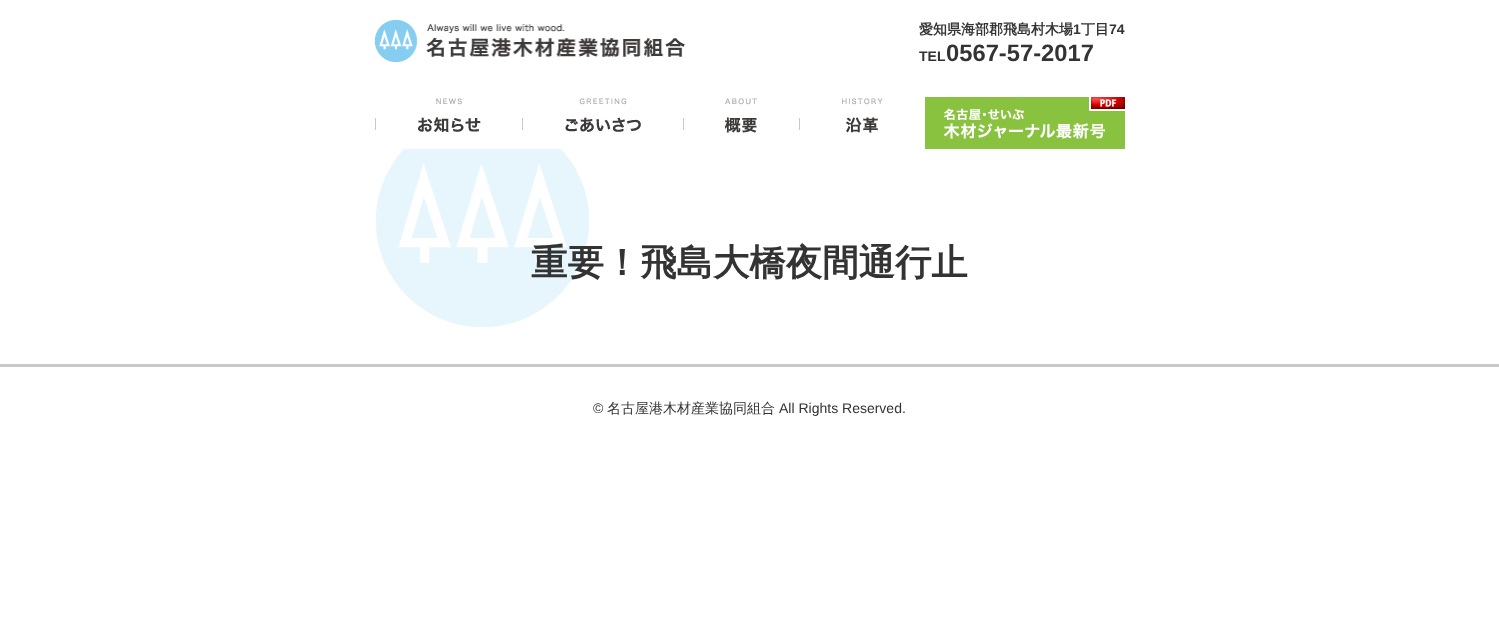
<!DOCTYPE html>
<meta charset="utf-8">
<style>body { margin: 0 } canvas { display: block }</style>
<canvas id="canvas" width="1499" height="640"></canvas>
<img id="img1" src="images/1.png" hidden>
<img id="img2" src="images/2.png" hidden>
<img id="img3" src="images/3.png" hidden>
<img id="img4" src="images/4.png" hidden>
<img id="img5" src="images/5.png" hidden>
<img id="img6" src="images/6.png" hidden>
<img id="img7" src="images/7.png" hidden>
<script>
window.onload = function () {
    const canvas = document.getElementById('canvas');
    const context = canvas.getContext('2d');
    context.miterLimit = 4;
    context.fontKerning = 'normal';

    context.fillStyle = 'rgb(255, 255, 255)';
    context.fillRect(0, 0, 1499, 640);
    context.drawImage(document.getElementById('img1'), 375, 20, 310, 42);
    context.drawImage(document.getElementById('img2'), 375, 98, 148, 34);
    context.drawImage(document.getElementById('img3'), 565, 98, 119, 34);
    context.drawImage(document.getElementById('img4'), 724, 98, 33, 35);
    context.drawImage(document.getElementById('img5'), 799, 98, 84, 35);
    context.drawImage(document.getElementById('img6'), 925, 97, 200, 52);
    context.drawImage(document.getElementById('img7'), 376, 149, 213, 178);
    context.fillStyle = 'rgb(200, 200, 200)';
    context.fillRect(0, 364, 1499, 3);
    context.font = 'bold 14px WenQuanYi Zen Hei';
    context.fillStyle = 'rgb(51, 51, 51)';
    context.fillText('愛知県海部郡飛島村木場', 919, 34);
    context.font = 'bold 14px Liberation Sans';
    context.fillText('1', 1073, 34);
    context.font = 'bold 14px WenQuanYi Zen Hei';
    context.fillText('丁目', 1081, 34);
    context.font = 'bold 14px Liberation Sans';
    context.fillText('74', 1109, 34);
    context.fillText('TEL', 919, 61);
    context.font = 'bold 23.75px Liberation Sans';
    context.fillText('0567-57-2017', 946, 61);
    context.font = 'bold 36.4px WenQuanYi Zen Hei';
    context.fillText('重要！飛島大橋夜間通行止', 531, 275);
    context.font = '14px Liberation Sans';
    context.fillText('©', 593, 413);
    context.font = '500 14px WenQuanYi Zen Hei';
    context.fillText('名古屋港⽊材産業協同組合', 607, 413);
    context.font = '14px Liberation Sans';
    context.fillText('All Rights Reserved.', 779, 413);
};
</script>
